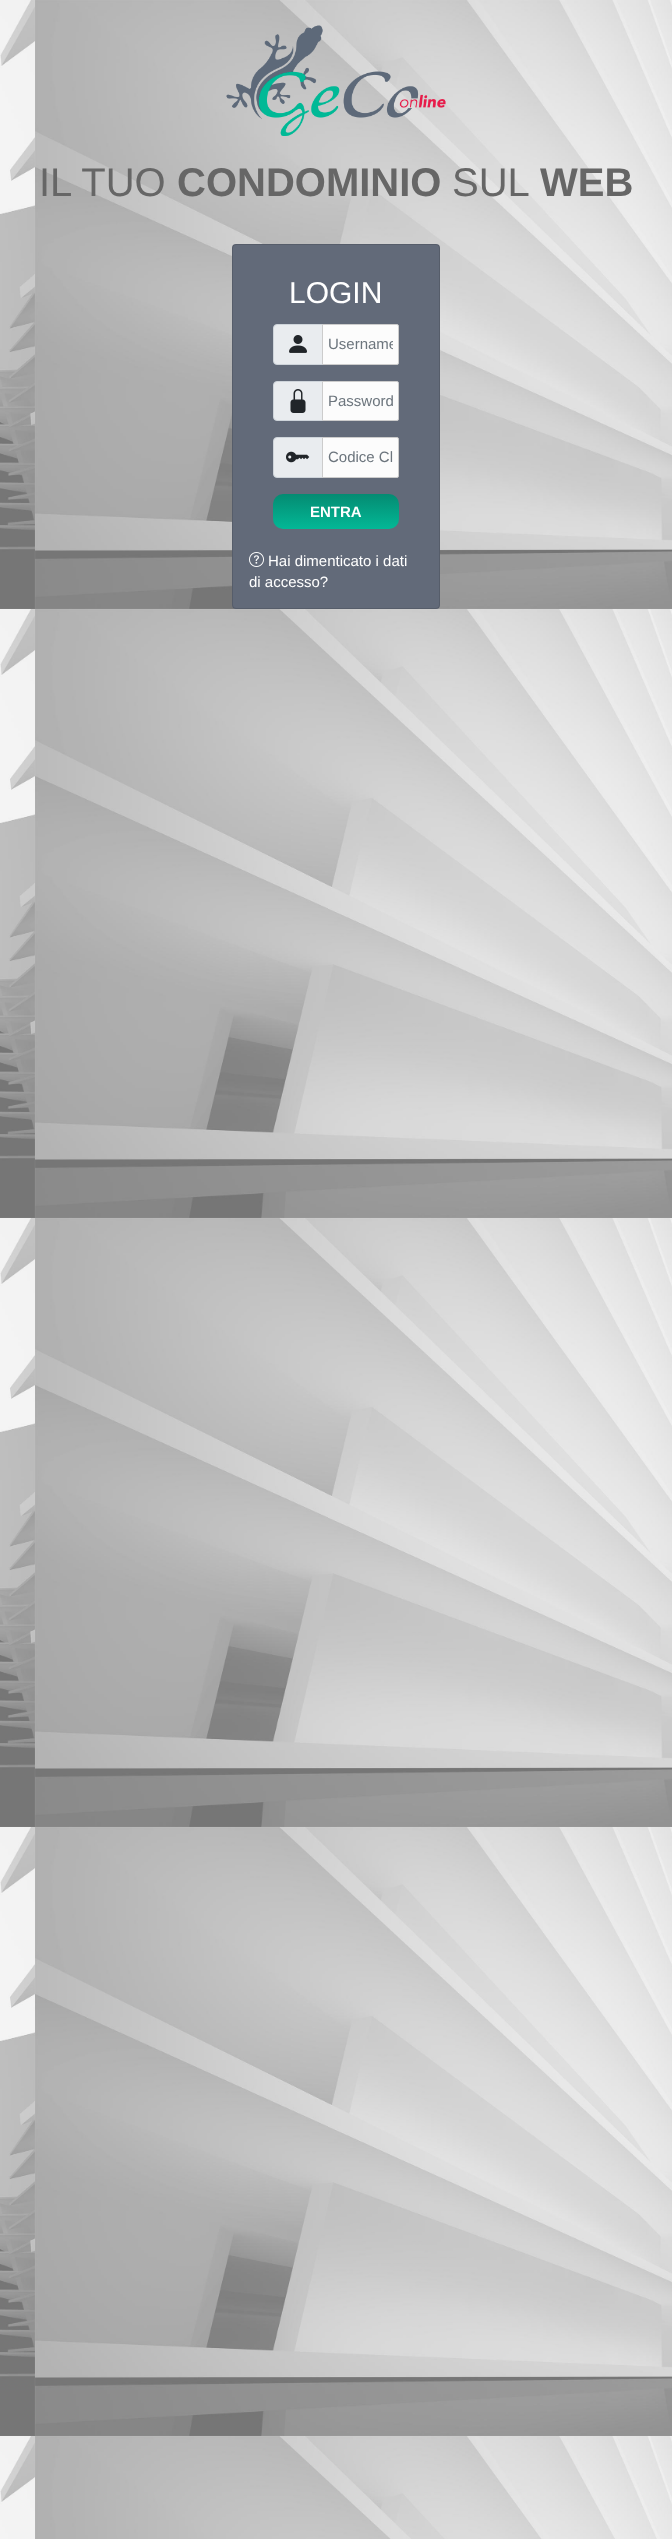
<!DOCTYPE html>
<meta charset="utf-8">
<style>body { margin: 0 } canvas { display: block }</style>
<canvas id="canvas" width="672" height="2539"></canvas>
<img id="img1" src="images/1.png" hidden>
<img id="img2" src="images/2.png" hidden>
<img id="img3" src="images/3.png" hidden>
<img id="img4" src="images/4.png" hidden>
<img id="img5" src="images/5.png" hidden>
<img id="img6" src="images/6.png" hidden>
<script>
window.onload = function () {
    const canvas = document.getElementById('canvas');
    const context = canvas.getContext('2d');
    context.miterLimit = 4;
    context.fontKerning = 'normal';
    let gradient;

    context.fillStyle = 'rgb(255, 255, 255)';
    context.fillRect(0, 0, 672, 2539);
    context.drawImage(document.getElementById('img1'), 0, 0, 672, 2539);
    context.drawImage(document.getElementById('img2'), 226, 25, 220, 111);
    context.fillStyle = 'rgb(98, 106, 121)';
    context.beginPath();
    context.roundRect(232, 244, 208, 365, 4);
    context.fill();
    context.beginPath();
    context.roundRect(232.5, 244.5, 207, 364, 3.5);
    context.strokeStyle = 'rgba(0, 0, 0, 0.12)';
    context.stroke();
    context.fillStyle = 'rgb(233, 236, 239)';
    context.beginPath();
    context.roundRect(273.5, 324.5, 49, 40, [3.5, 0, 0, 3.5]);
    context.fill();
    context.strokeStyle = 'rgb(206, 212, 218)';
    context.stroke();
    context.drawImage(document.getElementById('img3'), 289, 335, 18, 18);
    context.fillStyle = 'rgb(252, 252, 252)';
    context.beginPath();
    context.roundRect(322.5, 324.5, 76, 40, [0, 1.5, 1.5, 0]);
    context.fill();
    context.strokeStyle = 'rgb(204, 204, 204)';
    context.stroke();
    context.fillStyle = 'rgb(233, 236, 239)';
    context.beginPath();
    context.roundRect(273.5, 381.5, 49, 39, [3.5, 0, 0, 3.5]);
    context.fill();
    context.strokeStyle = 'rgb(206, 212, 218)';
    context.stroke();
    context.drawImage(document.getElementById('img4'), 290, 389, 16, 24);
    context.fillStyle = 'rgb(252, 252, 252)';
    context.beginPath();
    context.roundRect(322.5, 381.5, 76, 39, [0, 1.5, 1.5, 0]);
    context.fill();
    context.strokeStyle = 'rgb(204, 204, 204)';
    context.stroke();
    context.fillStyle = 'rgb(233, 236, 239)';
    context.beginPath();
    context.roundRect(273.5, 437.5, 49, 40, [3.5, 0, 0, 3.5]);
    context.fill();
    context.strokeStyle = 'rgb(206, 212, 218)';
    context.stroke();
    context.drawImage(document.getElementById('img5'), 286, 451, 24, 12);
    context.fillStyle = 'rgb(252, 252, 252)';
    context.beginPath();
    context.roundRect(322.5, 437.5, 76, 40, [0, 1.5, 1.5, 0]);
    context.fill();
    context.strokeStyle = 'rgb(204, 204, 204)';
    context.stroke();
    gradient = context.createLinearGradient(336, 494, 336, 529);
    gradient.addColorStop(0, 'rgb(4, 139, 114)');
    gradient.addColorStop(1, 'rgb(3, 184, 150)');
    context.fillStyle = gradient;
    context.beginPath();
    context.roundRect(273, 494, 126, 35, 10);
    context.fill();
    context.drawImage(document.getElementById('img6'), 249, 552, 15, 15);
    context.font = '40px Liberation Sans';
    context.fillStyle = 'rgb(102, 102, 102)';
    context.fillText('IL TUO', 39, 196);
    context.font = 'bold 40px Liberation Sans';
    context.fillText('CONDOMINIO', 177, 196);
    context.font = '40px Liberation Sans';
    context.fillText('SUL', 452, 196);
    context.font = 'bold 40px Liberation Sans';
    context.fillText('WEB', 540, 196);
    context.font = '30px Liberation Sans';
    context.fillStyle = 'rgb(255, 255, 255)';
    context.fillText('LOGIN', 289, 303);
    context.save();
    context.beginPath();
    context.rect(328, 335, 65, 17);
    context.clip();
    context.font = '15px Liberation Sans';
    context.fillStyle = 'rgb(108, 117, 125)';
    context.fillText('Username', 328, 349);
    context.restore();
    context.font = '15px Liberation Sans';
    context.fillStyle = 'rgb(108, 117, 125)';
    context.fillText('Password', 328, 406);
    context.fillText('Codice Cl', 328, 462);
    context.font = 'bold 15px Liberation Sans';
    context.fillStyle = 'rgb(255, 255, 255)';
    context.fillText('ENTRA', 310, 517);
    context.font = '15px Liberation Sans';
    context.fillText('Hai dimenticato i dati', 268, 566);
    context.fillText('di accesso?', 249, 587);
};
</script>
